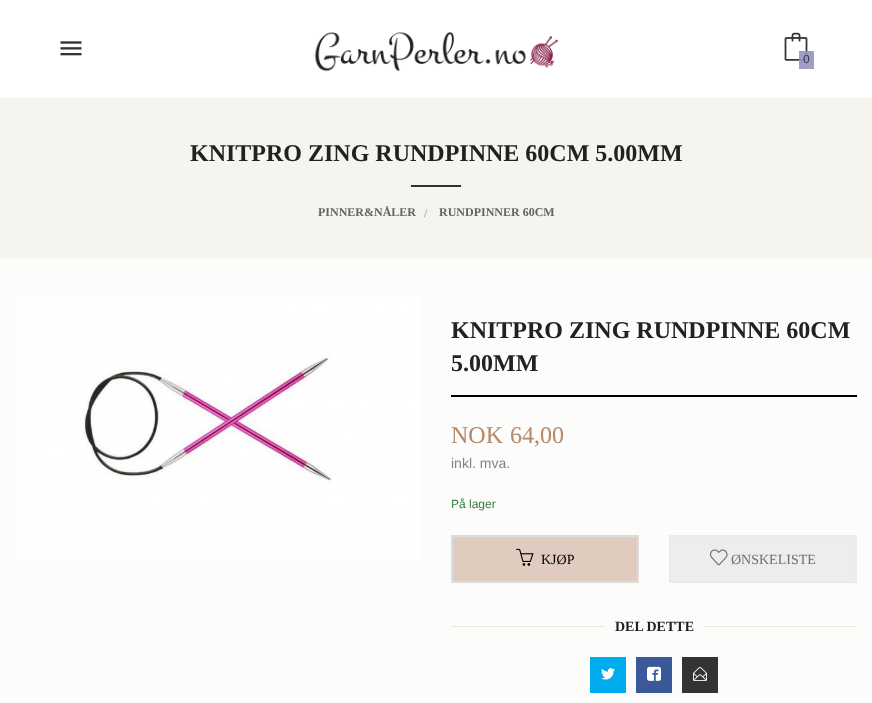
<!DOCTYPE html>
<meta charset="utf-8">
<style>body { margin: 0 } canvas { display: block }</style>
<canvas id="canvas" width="872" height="703"></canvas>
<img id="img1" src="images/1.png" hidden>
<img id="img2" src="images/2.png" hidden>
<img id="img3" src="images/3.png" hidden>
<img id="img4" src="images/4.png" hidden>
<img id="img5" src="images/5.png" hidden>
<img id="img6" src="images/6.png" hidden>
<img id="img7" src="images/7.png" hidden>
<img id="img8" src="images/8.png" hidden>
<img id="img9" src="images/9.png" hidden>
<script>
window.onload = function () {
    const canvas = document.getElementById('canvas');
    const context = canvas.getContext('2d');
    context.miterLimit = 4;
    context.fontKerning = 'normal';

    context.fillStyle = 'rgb(252, 252, 250)';
    context.fillRect(0, 0, 872, 703);
    context.fillStyle = 'rgb(255, 255, 255)';
    context.fillRect(0, 0, 872, 98);
    context.drawImage(document.getElementById('img1'), 60, 41, 22, 15);
    context.drawImage(document.getElementById('img2'), 314, 32, 245, 40);
    context.drawImage(document.getElementById('img3'), 784, 32, 24, 29);
    context.fillStyle = 'rgba(150, 146, 194, 0.9)';
    context.fillRect(799, 51, 15, 18);
    context.fillStyle = 'rgb(245, 244, 238)';
    context.fillRect(0, 98, 872, 161);
    context.fillStyle = 'rgb(48, 48, 48)';
    context.fillRect(411, 185, 50, 2);
    context.drawImage(document.getElementById('img4'), 15, 297, 406, 263);
    context.fillStyle = 'rgb(0, 0, 0)';
    context.fillRect(451, 395, 406, 2);
    context.fillStyle = 'rgb(223, 204, 190)';
    context.beginPath();
    context.rect(452, 536, 186, 46);
    context.fill();
    context.strokeStyle = 'rgb(221, 221, 221)';
    context.lineWidth = 2;
    context.stroke();
    context.drawImage(document.getElementById('img5'), 516, 548, 18, 18);
    context.fillStyle = 'rgb(237, 237, 237)';
    context.beginPath();
    context.rect(670, 536, 186, 46);
    context.fill();
    context.strokeStyle = 'rgb(235, 235, 235)';
    context.stroke();
    context.drawImage(document.getElementById('img6'), 710, 549, 18, 17);
    context.fillStyle = 'rgb(233, 233, 218)';
    context.fillRect(451, 626, 406, 1);
    context.fillStyle = 'rgb(252, 252, 250)';
    context.fillRect(605, 626, 98, 1);
    context.fillStyle = 'rgb(0, 172, 237)';
    context.fillRect(590, 657, 36, 36);
    context.drawImage(document.getElementById('img7'), 601, 668, 14, 12);
    context.fillStyle = 'rgb(59, 89, 152)';
    context.fillRect(636, 657, 36, 36);
    context.drawImage(document.getElementById('img8'), 647, 666, 14, 15);
    context.fillStyle = 'rgb(51, 51, 51)';
    context.fillRect(682, 657, 36, 36);
    context.drawImage(document.getElementById('img9'), 693, 666, 14, 15);
    context.font = '12px Liberation Sans';
    context.fillStyle = 'rgb(59, 58, 63)';
    context.fillText('0', 803, 63);
    context.font = 'bold 24px Liberation Serif';
    context.fillStyle = 'rgb(33, 33, 33)';
    context.fillText('KNITPRO ZING RUNDPINNE 60CM 5.00MM', 190, 161);
    context.font = 'bold 12px Liberation Serif';
    context.fillStyle = 'rgb(100, 99, 98)';
    context.fillText('PINNER&NÅLER', 318, 216);
    context.fillStyle = 'rgb(170, 170, 170)';
    context.fillText('/', 424, 217);
    context.fillStyle = 'rgb(100, 99, 98)';
    context.fillText('RUNDPINNER 60CM', 439, 216);
    context.font = 'bold 24px Liberation Serif';
    context.fillStyle = 'rgb(33, 33, 33)';
    context.fillText('KNITPRO ZING RUNDPINNE 60CM', 451, 338);
    context.fillText('5.00MM', 451, 371);
    context.font = '24px Liberation Serif';
    context.fillStyle = 'rgb(180, 136, 105)';
    context.fillText('NOK', 451, 443);
    context.fillText('64,00', 510, 443);
    context.font = '14px Liberation Sans';
    context.fillStyle = 'rgb(131, 131, 131)';
    context.fillText('inkl. mva.', 451, 468);
    context.font = '12px Liberation Sans';
    context.fillStyle = 'rgb(56, 128, 56)';
    context.fillText('På lager', 451, 508);
    context.font = '14px Liberation Serif';
    context.fillStyle = 'rgb(0, 0, 0)';
    context.fillText('KJØP', 541, 564);
    context.fillStyle = 'rgb(111, 111, 111)';
    context.fillText('ØNSKELISTE', 731, 564);
    context.font = 'bold 14px Liberation Serif';
    context.fillStyle = 'rgb(33, 33, 33)';
    context.fillText('DEL DETTE', 615, 631);
};
</script>
